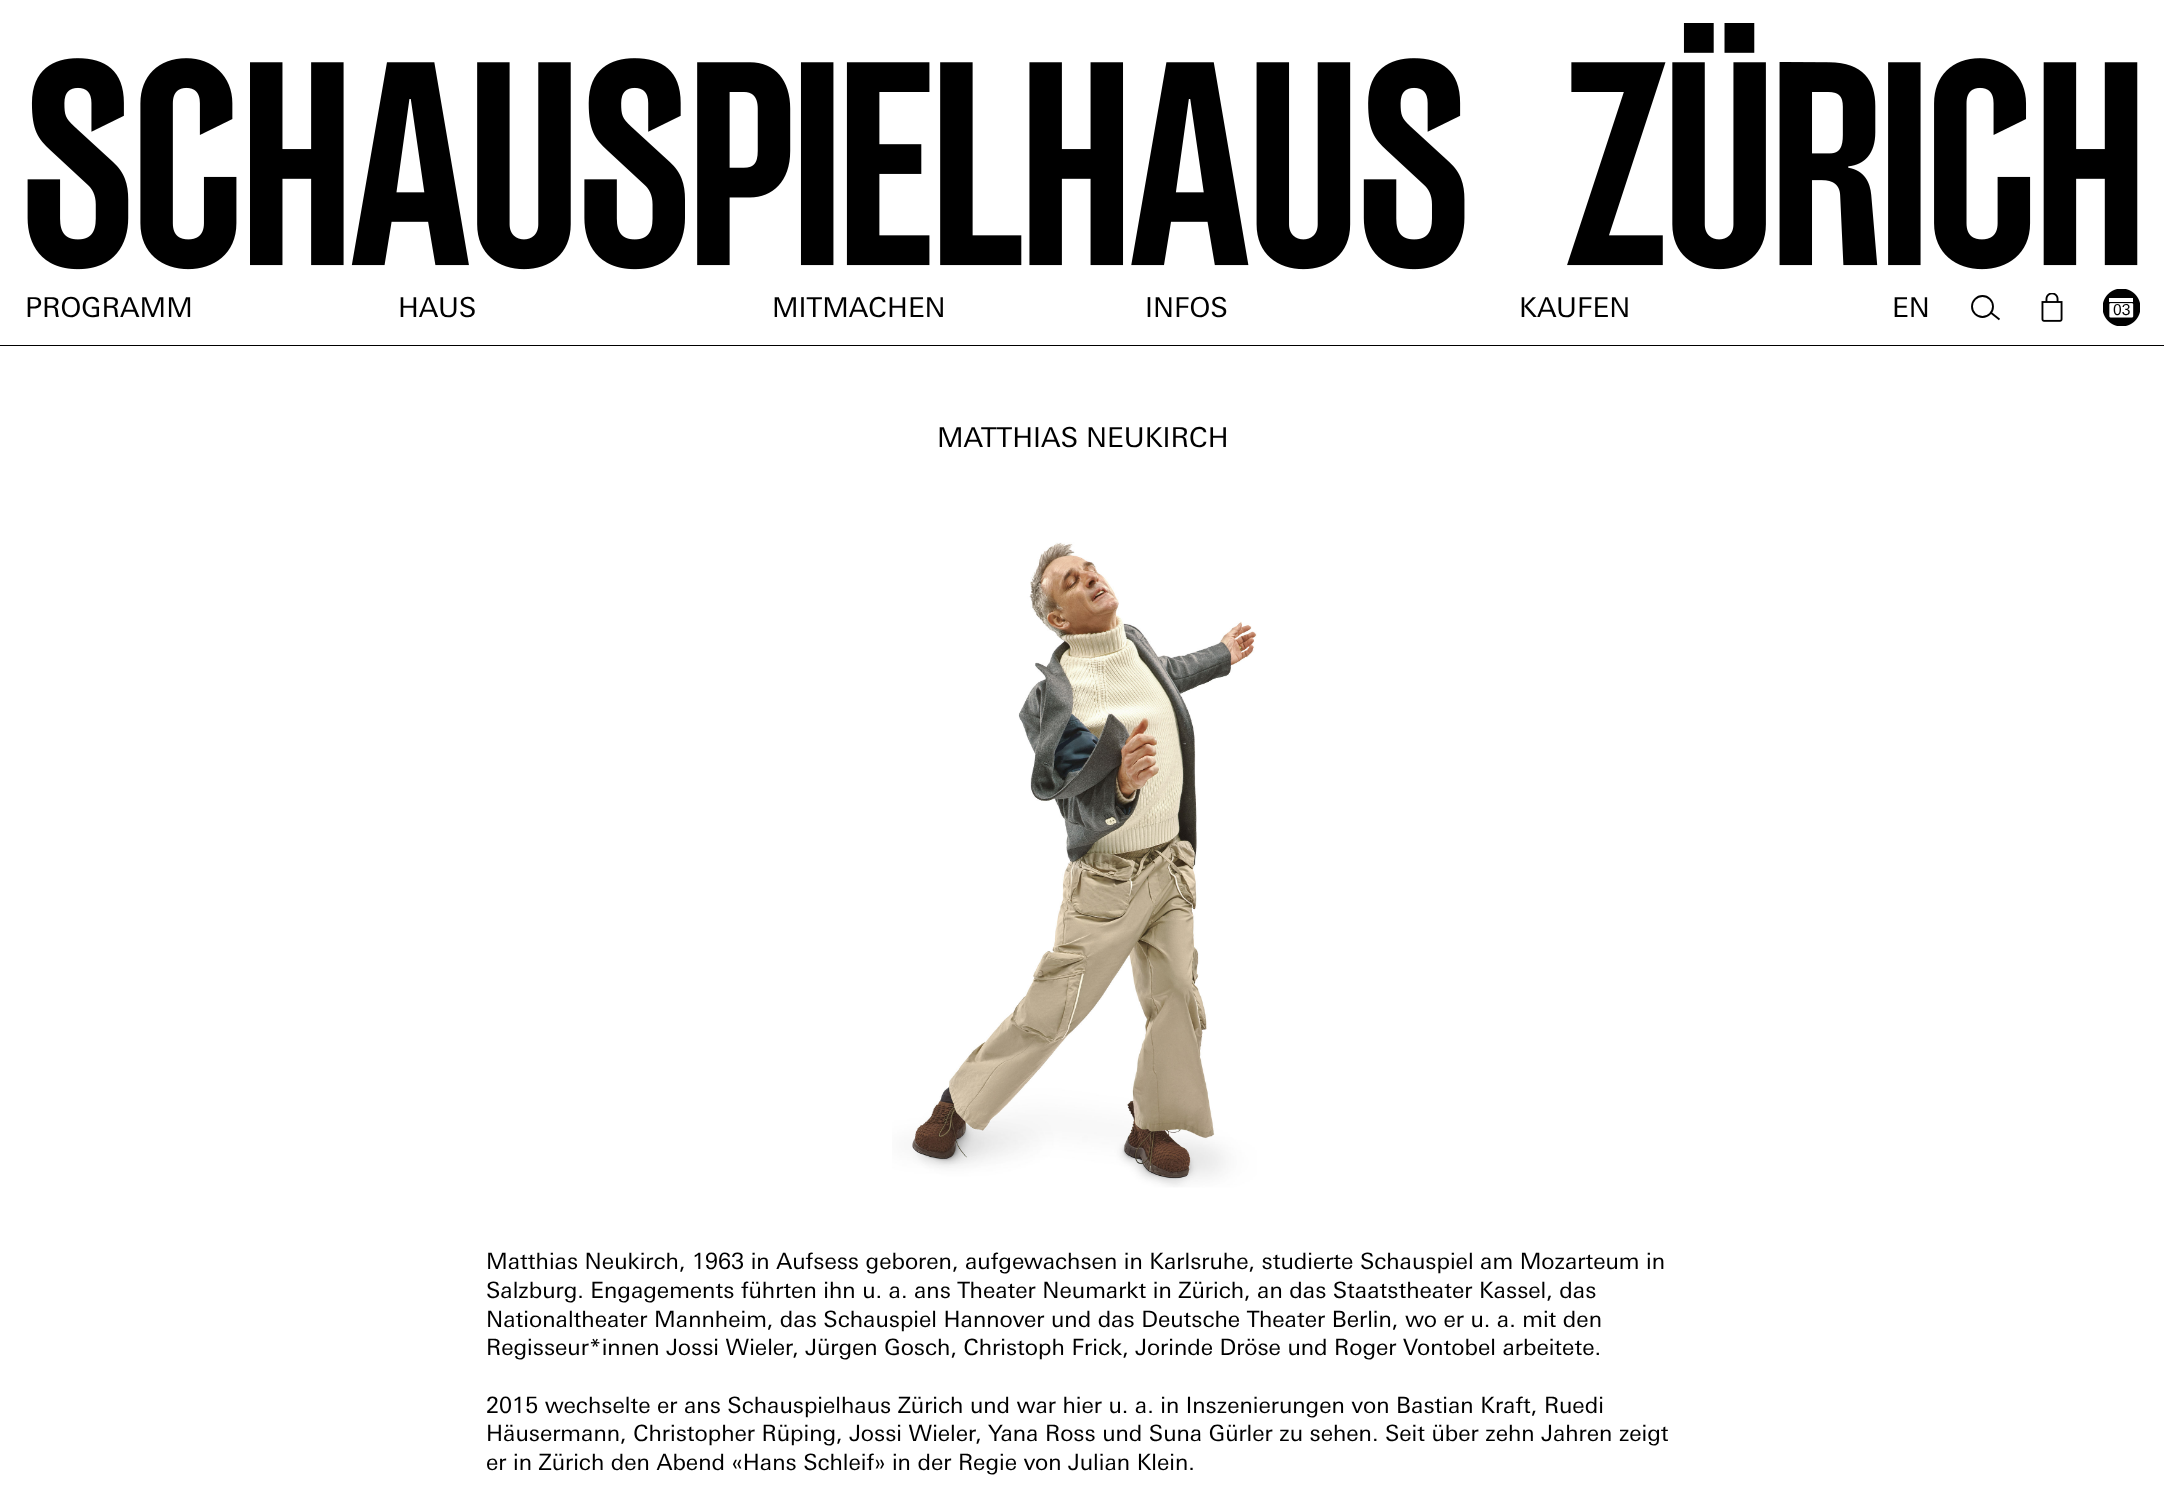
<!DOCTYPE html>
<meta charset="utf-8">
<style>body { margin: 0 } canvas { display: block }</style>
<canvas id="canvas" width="2164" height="1497"></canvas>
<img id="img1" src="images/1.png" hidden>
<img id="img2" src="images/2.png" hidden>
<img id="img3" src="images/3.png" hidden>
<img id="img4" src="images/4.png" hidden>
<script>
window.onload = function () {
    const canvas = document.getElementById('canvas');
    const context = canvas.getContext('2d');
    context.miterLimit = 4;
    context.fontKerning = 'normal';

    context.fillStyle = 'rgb(255, 255, 255)';
    context.fillRect(0, 0, 2164, 1497);
    context.drawImage(document.getElementById('img1'), 27, 23, 2111, 247);
    context.fillStyle = 'rgb(0, 0, 0)';
    context.fillRect(0, 345, 2164, 1);
    context.beginPath();
    context.moveTo(1983, 306.5);
    context.lineTo(1999.5, 319.5);
    context.strokeStyle = 'rgb(0, 0, 0)';
    context.lineWidth = 1.9;
    context.stroke();
    context.fillStyle = 'rgb(255, 255, 255)';
    context.beginPath();
    context.arc(1982.5, 306.5, 10.5, 0, 2 * Math.PI);
    context.fill();
    context.stroke();
    context.drawImage(document.getElementById('img2'), 2041, 293, 22, 29);
    context.drawImage(document.getElementById('img3'), 2103, 289, 37, 37);
    context.drawImage(document.getElementById('img4'), 892, 542, 365, 646);
    context.font = '27.5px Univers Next';
    context.fillStyle = 'rgb(0, 0, 0)';
    context.fillText('PROGRAMM', 25, 317);
    context.fillText('HAUS', 398, 317);
    context.fillText('MITMACHEN', 772, 317);
    context.fillText('INFOS', 1145, 317);
    context.fillText('KAUFEN', 1519, 317);
    context.fillText('EN', 1892, 317);
    context.font = '15px Univers Next';
    context.fillText('03', 2113, 315);
    context.font = '27.5px Univers Next';
    context.fillText('MATTHIAS NEUKIRCH', 937, 447);
    context.font = '22.5px Univers Next';
    context.fillText('Matthias Neukirch, 1963 in Aufsess geboren, aufgewachsen in Karlsruhe, studierte Schauspiel am Mozarteum in', 486, 1269);
    context.fillText('Salzburg. Engagements führten ihn u. a. ans Theater Neumarkt in Zürich, an das Staatstheater Kassel, das', 486, 1298);
    context.fillText('Nationaltheater Mannheim, das Schauspiel Hannover und das Deutsche Theater Berlin, wo er u. a. mit den', 486, 1327);
    context.fillText('Regisseur*innen Jossi Wieler, Jürgen Gosch, Christoph Frick, Jorinde Dröse und Roger Vontobel arbeitete.', 486, 1355);
    context.fillText('2015 wechselte er ans Schauspielhaus Zürich und war hier u. a. in Inszenierungen von Bastian Kraft, Ruedi', 486, 1413);
    context.fillText('Häusermann, Christopher Rüping, Jossi Wieler, Yana Ross und Suna Gürler zu sehen. Seit über zehn Jahren zeigt', 486, 1441);
    context.fillText('er in Zürich den Abend «Hans Schleif» in der Regie von Julian Klein.', 486, 1470);
};
</script>
